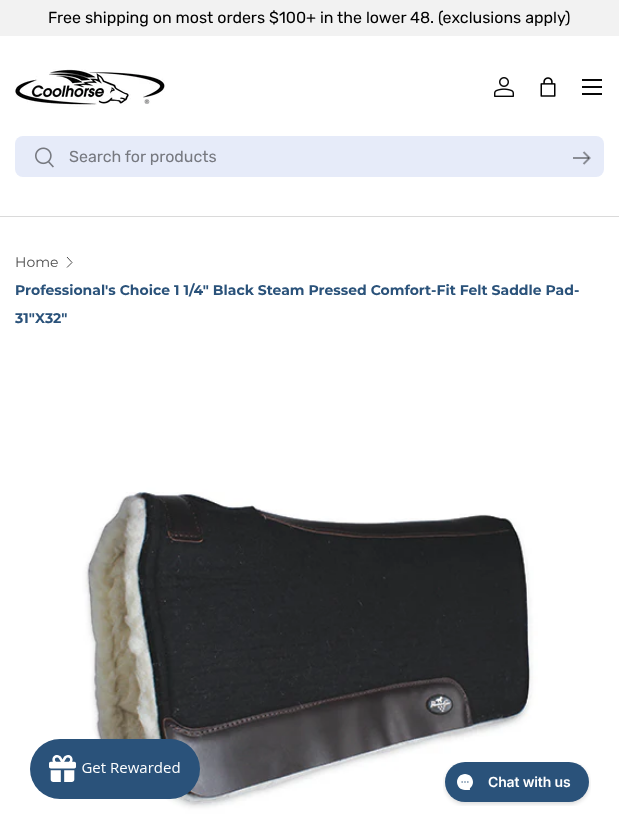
<!DOCTYPE html>
<meta charset="utf-8">
<style>body { margin: 0 } canvas { display: block }</style>
<canvas id="canvas" width="619" height="829"></canvas>
<img id="img1" src="images/1.png" hidden>
<img id="img2" src="images/2.png" hidden>
<img id="img3" src="images/3.png" hidden>
<img id="img4" src="images/4.png" hidden>
<img id="img5" src="images/5.png" hidden>
<img id="img6" src="images/6.png" hidden>
<img id="img7" src="images/7.png" hidden>
<img id="img8" src="images/8.png" hidden>
<script>
window.onload = function () {
    const canvas = document.getElementById('canvas');
    const context = canvas.getContext('2d');
    context.miterLimit = 4;
    context.fontKerning = 'normal';

    context.fillStyle = 'rgb(255, 255, 255)';
    context.fillRect(0, 0, 619, 829);
    context.fillStyle = 'rgb(242, 242, 242)';
    context.fillRect(0, 0, 619, 36);
    context.fillStyle = 'rgb(218, 218, 218)';
    context.fillRect(0, 216, 619, 1);
    context.drawImage(document.getElementById('img1'), 15, 69, 150, 38);
    context.drawImage(document.getElementById('img2'), 494, 77, 20, 20);
    context.drawImage(document.getElementById('img3'), 540, 77, 16, 20);
    context.fillStyle = 'rgb(7, 7, 7)';
    context.fillRect(582, 79, 20, 2);
    context.fillRect(582, 93, 20, 2);
    context.fillRect(582, 86, 20, 2);
    context.fillStyle = 'rgb(230, 235, 249)';
    context.beginPath();
    context.roundRect(15, 136, 589, 41, 8);
    context.fill();
    context.drawImage(document.getElementById('img4'), 35, 147, 19, 21);
    context.drawImage(document.getElementById('img5'), 573, 151, 18, 14);
    context.beginPath();
    context.moveTo(67, 257);
    context.lineTo(72, 262.5);
    context.lineTo(67, 267.5);
    context.strokeStyle = 'rgb(77, 77, 77)';
    context.stroke();
    context.drawImage(document.getElementById('img6'), 16, 353, 587, 476);
    context.fillStyle = 'rgb(42, 82, 122)';
    context.beginPath();
    context.roundRect(30, 739, 170, 60, 30);
    context.fill();
    context.drawImage(document.getElementById('img7'), 49, 755, 131, 27);
    context.drawImage(document.getElementById('img8'), 443, 762, 148, 44);
    context.font = '16px Rubik';
    context.fillStyle = 'rgb(0, 0, 0)';
    context.fillText('Free shipping on most orders $100+ in the lower 48. (exclusions apply)', 48, 23);
    context.fillStyle = 'rgb(119, 121, 128)';
    context.fillText('Search for products', 69, 162);
    context.font = '14px Montserrat';
    context.fillStyle = 'rgb(77, 77, 77)';
    context.fillText('Home', 15, 267);
    context.font = 'bold 14px Montserrat';
    context.fillStyle = 'rgb(42, 82, 122)';
    context.fillText('Professional\'s Choice 1 1/4" Black Steam Pressed Comfort-Fit Felt Saddle Pad-', 15, 295);
    context.fillText('31"X32"', 15, 323);
};
</script>
